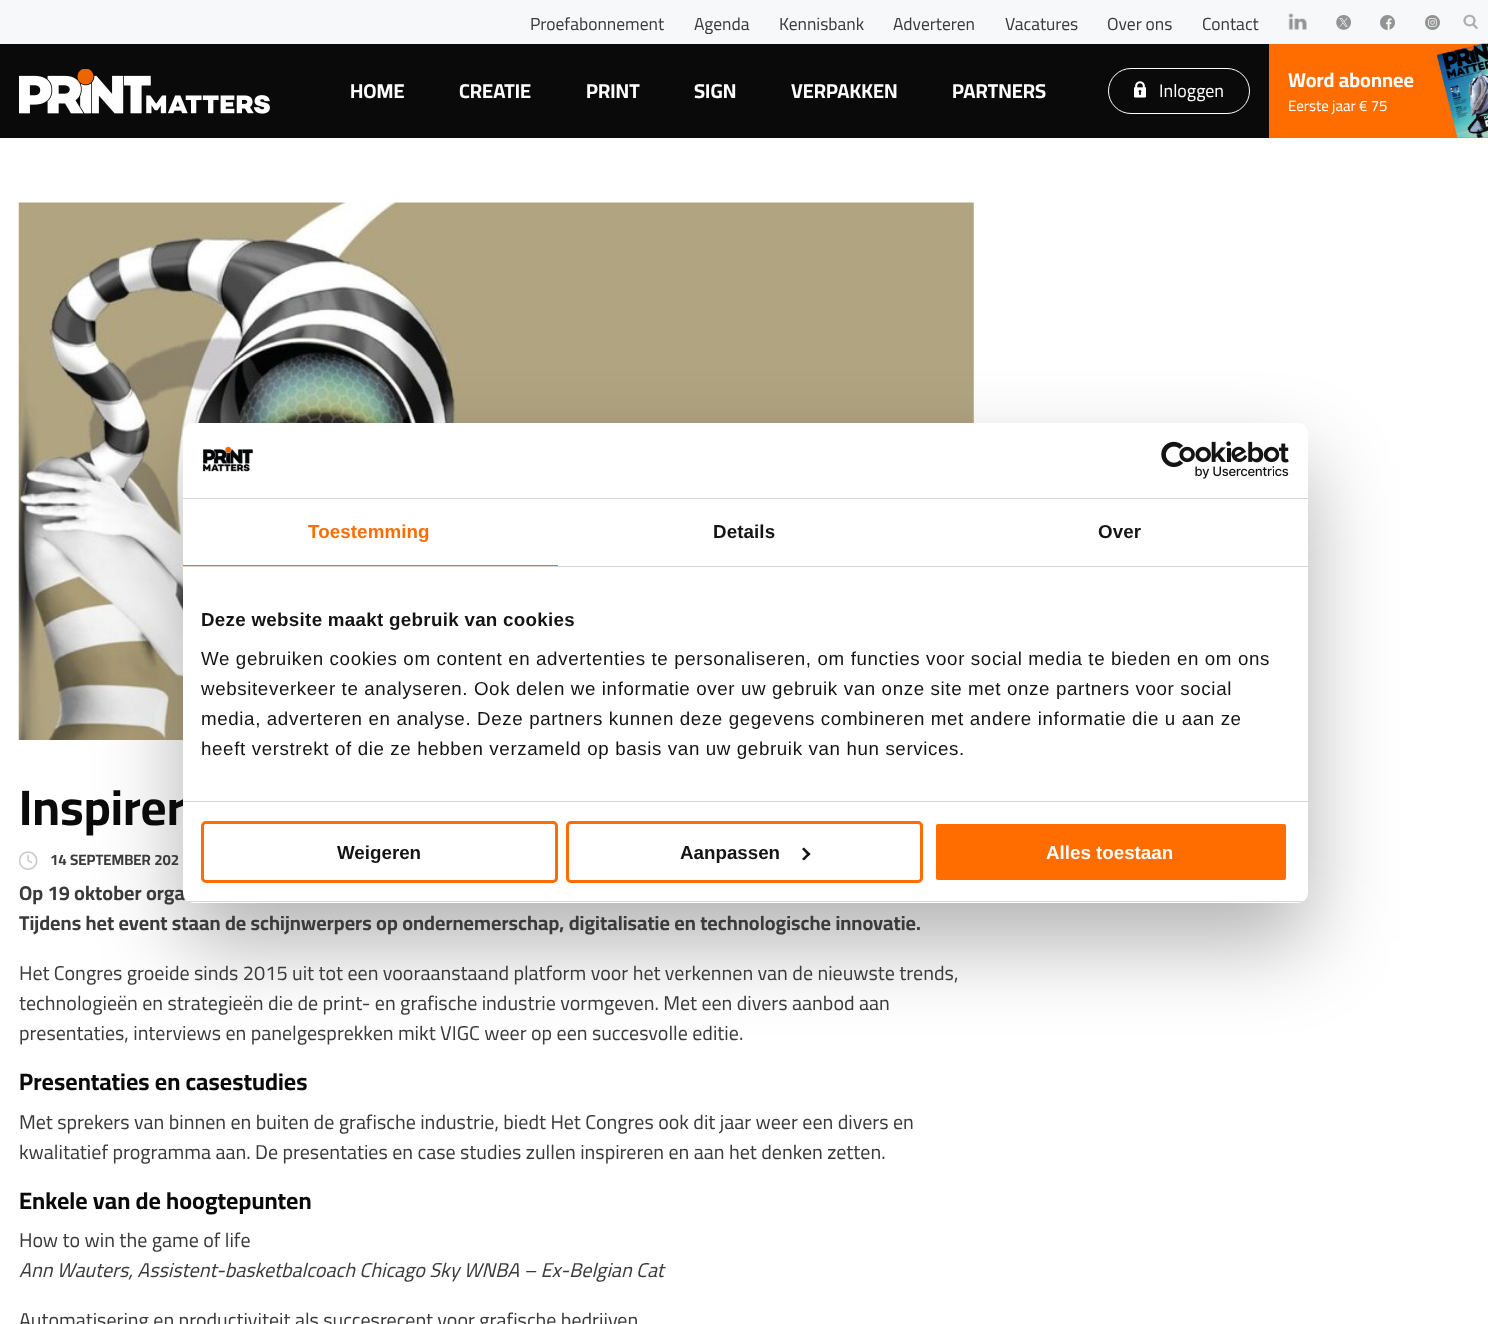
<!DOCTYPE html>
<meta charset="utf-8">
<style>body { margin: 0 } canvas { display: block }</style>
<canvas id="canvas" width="1488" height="1324"></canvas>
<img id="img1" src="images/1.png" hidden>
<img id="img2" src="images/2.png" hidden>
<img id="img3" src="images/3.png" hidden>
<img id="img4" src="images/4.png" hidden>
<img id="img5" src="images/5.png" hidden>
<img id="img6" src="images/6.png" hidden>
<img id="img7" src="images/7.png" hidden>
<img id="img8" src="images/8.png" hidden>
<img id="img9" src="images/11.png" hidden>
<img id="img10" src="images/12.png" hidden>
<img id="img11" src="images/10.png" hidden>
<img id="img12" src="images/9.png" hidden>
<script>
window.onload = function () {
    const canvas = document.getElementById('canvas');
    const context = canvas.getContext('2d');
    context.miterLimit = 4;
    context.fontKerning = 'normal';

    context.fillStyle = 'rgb(255, 255, 255)';
    context.fillRect(0, 0, 1488, 1324);
    context.fillStyle = 'rgb(247, 248, 249)';
    context.fillRect(0, 0, 1488, 44);
    context.drawImage(document.getElementById('img1'), 1288, 13, 19, 17);
    context.drawImage(document.getElementById('img2'), 1336, 15, 15, 15);
    context.drawImage(document.getElementById('img3'), 1380, 15, 15, 15);
    context.drawImage(document.getElementById('img4'), 1425, 15, 15, 15);
    context.drawImage(document.getElementById('img5'), 1463, 14, 15, 15);
    context.fillStyle = 'rgb(10, 10, 10)';
    context.fillRect(0, 44, 1269, 94);
    context.drawImage(document.getElementById('img6'), 19, 69, 251, 45);
    context.beginPath();
    context.roundRect(1108.5, 68.5, 141, 45, 22.5);
    context.strokeStyle = 'rgb(254, 254, 254)';
    context.stroke();
    context.drawImage(document.getElementById('img7'), 1134, 81, 12, 17);
    context.fillStyle = 'rgb(255, 108, 0)';
    context.fillRect(1269, 44, 219, 94);
    context.drawImage(document.getElementById('img8'), 1437, 43, 51, 95);
    context.drawImage(document.getElementById('img9'), 18, 202, 956, 538);
    context.fillStyle = 'rgba(0, 0, 0, 0.3)';
    context.filter = 'blur(42.5px)';
    context.beginPath();
    context.roundRect(183, 463, 1125, 480, 10);
    context.fill();
    context.filter = 'none';
    context.drawImage(document.getElementById('img10'), 19, 851, 19, 19);
    context.font = '17.5px Cairo';
    context.fillStyle = 'rgb(59, 59, 59)';
    context.fillText('Proefabonnement', 530, 30);
    context.fillText('Agenda', 694, 30);
    context.fillText('Kennisbank', 779, 30);
    context.fillText('Adverteren', 893, 30);
    context.fillText('Vacatures', 1005, 30);
    context.fillText('Over ons', 1107, 30);
    context.fillText('Contact', 1202, 30);
    context.font = 'bold 20px Cairo';
    context.fillStyle = 'rgb(254, 254, 254)';
    context.fillText('HOME', 350, 98);
    context.fillText('CREATIE', 459, 98);
    context.fillText('PRINT', 586, 98);
    context.fillText('SIGN', 694, 98);
    context.fillText('VERPAKKEN', 791, 98);
    context.fillText('PARTNERS', 952, 98);
    context.font = '18px Cairo';
    context.fillText('Inloggen', 1159, 97);
    context.font = 'bold 20px Cairo';
    context.fillText('Word abonnee', 1288, 87);
    context.font = '15px Cairo';
    context.fillText('Eerste jaar € 75', 1288, 111);
    context.font = 'bold 50px Cairo';
    context.fillStyle = 'rgb(10, 10, 10)';
    context.fillText('Inspirer', 19, 825);
    context.font = 'bold 15px Cairo';
    context.fillStyle = 'rgb(59, 59, 59)';
    context.fillText('14 SEPTEMBER 202', 50, 865);
    context.font = 'bold 20px Cairo';
    context.fillText('Op 19 oktober orga', 19, 900);
    context.fillStyle = 'rgb(255, 255, 255)';
    context.beginPath();
    context.roundRect(183, 423, 1125, 480, 10);
    context.fill();
    context.beginPath();
    context.roundRect(567.5, 822.5, 354, 59, 3.5);
    context.strokeStyle = 'rgb(255, 108, 0)';
    context.lineWidth = 3;
    context.stroke();
    context.fillStyle = 'rgb(20, 20, 20)';
    context.beginPath();
    context.moveTo(804, 847.5);
    context.lineTo(810.5, 854);
    context.lineTo(808.5, 856);
    context.lineTo(802, 849);
    context.closePath();
    context.fill();
    context.beginPath();
    context.moveTo(808.5, 852.5);
    context.lineTo(810.5, 854);
    context.lineTo(804, 860.5);
    context.lineTo(802, 859);
    context.closePath();
    context.fill();
    context.fillStyle = 'rgb(255, 108, 0)';
    context.beginPath();
    context.roundRect(934.5, 822.5, 353, 59, 3.5);
    context.fill();
    context.strokeStyle = 'rgb(255, 255, 255)';
    context.stroke();
    context.font = 'bold 18.75px Liberation Sans';
    context.fillStyle = 'rgb(254, 254, 254)';
    context.fillText('Alles toestaan', 1046, 859);
    context.fillStyle = 'rgb(20, 20, 20)';
    context.fillText('Aanpassen', 680, 859);
    context.beginPath();
    context.roundRect(202.5, 822.5, 354, 59, 3.5);
    context.strokeStyle = 'rgb(255, 108, 0)';
    context.stroke();
    context.fillText('Weigeren', 337, 859);
    context.save();
    context.beginPath();
    context.roundRect(183, 423, 1125, 480, 10);
    context.clip();
    context.fillStyle = 'rgb(214, 214, 214)';
    context.fillRect(183, 901, 1125, 1);
    context.restore();
    context.letterSpacing = '0.62px';
    context.font = '18.75px Liberation Sans';
    context.fillText('heeft verstrekt of die ze hebben verzameld op basis van uw gebruik van hun services.', 201, 755);
    context.fillText('media, adverteren en analyse. Deze partners kunnen deze gegevens combineren met andere informatie die u aan ze', 201, 725);
    context.fillText('websiteverkeer te analyseren. Ook delen we informatie over uw gebruik van onze site met onze partners voor social', 201, 695);
    context.fillText('We gebruiken cookies om content en advertenties te personaliseren, om functies voor social media te bieden en om ons', 201, 665);
    context.letterSpacing = '0.3px';
    context.font = 'bold 18.75px Liberation Sans';
    context.fillText('Deze website maakt gebruik van cookies', 201, 626);
    context.fillStyle = 'rgb(214, 214, 214)';
    context.fillRect(183, 801, 1125, 1);
    context.letterSpacing = '0.1px';
    context.fillStyle = 'rgb(20, 20, 20)';
    context.fillText('Over', 1098, 538);
    context.fillText('Details', 713, 538);
    context.fillStyle = 'rgb(255, 108, 0)';
    context.fillText('Toestemming', 308, 538);
    context.fillRect(183, 565, 375, 1);
    context.fillStyle = 'rgb(214, 214, 214)';
    context.fillRect(183, 566, 1125, 1);
    context.drawImage(document.getElementById('img11'), 1161, 441, 128, 38);
    context.drawImage(document.getElementById('img12'), 202, 446, 52, 26);
    context.fillRect(183, 498, 1125, 1);
    context.letterSpacing = '0px';
    context.font = 'bold 20px Cairo';
    context.fillStyle = 'rgb(59, 59, 59)';
    context.fillText('Tijdens het event staan de schijnwerpers op ondernemerschap, digitalisatie en technologische innovatie.', 19, 930);
    context.font = '20px Cairo';
    context.fillText('Het Congres groeide sinds 2015 uit tot een vooraanstaand platform voor het verkennen van de nieuwste trends,', 19, 980);
    context.fillText('technologieën en strategieën die de print- en grafische industrie vormgeven. Met een divers aanbod aan', 19, 1010);
    context.fillText('presentaties, interviews en panelgesprekken mikt VIGC weer op een succesvolle editie.', 19, 1040);
    context.font = 'bold 23.75px Cairo';
    context.fillStyle = 'rgb(10, 10, 10)';
    context.fillText('Presentaties en casestudies', 19, 1090);
    context.font = '20px Cairo';
    context.fillStyle = 'rgb(59, 59, 59)';
    context.fillText('Met sprekers van binnen en buiten de grafische industrie, biedt Het Congres ook dit jaar weer een divers en', 19, 1129);
    context.fillText('kwalitatief programma aan. De presentaties en case studies zullen inspireren en aan het denken zetten.', 19, 1159);
    context.font = 'bold 23.75px Cairo';
    context.fillStyle = 'rgb(10, 10, 10)';
    context.fillText('Enkele van de hoogtepunten', 19, 1209);
    context.font = '20px Cairo';
    context.fillStyle = 'rgb(59, 59, 59)';
    context.fillText('How to win the game of life', 19, 1247);
    context.font = 'italic 20px Cairo';
    context.fillText('Ann Wauters, Assistent-basketbalcoach Chicago Sky WNBA – Ex-Belgian Cat', 19, 1277);
    context.font = '20px Cairo';
    context.fillText('Automatisering en productiviteit als succesrecept voor grafische bedrijven', 19, 1327);
};
</script>
